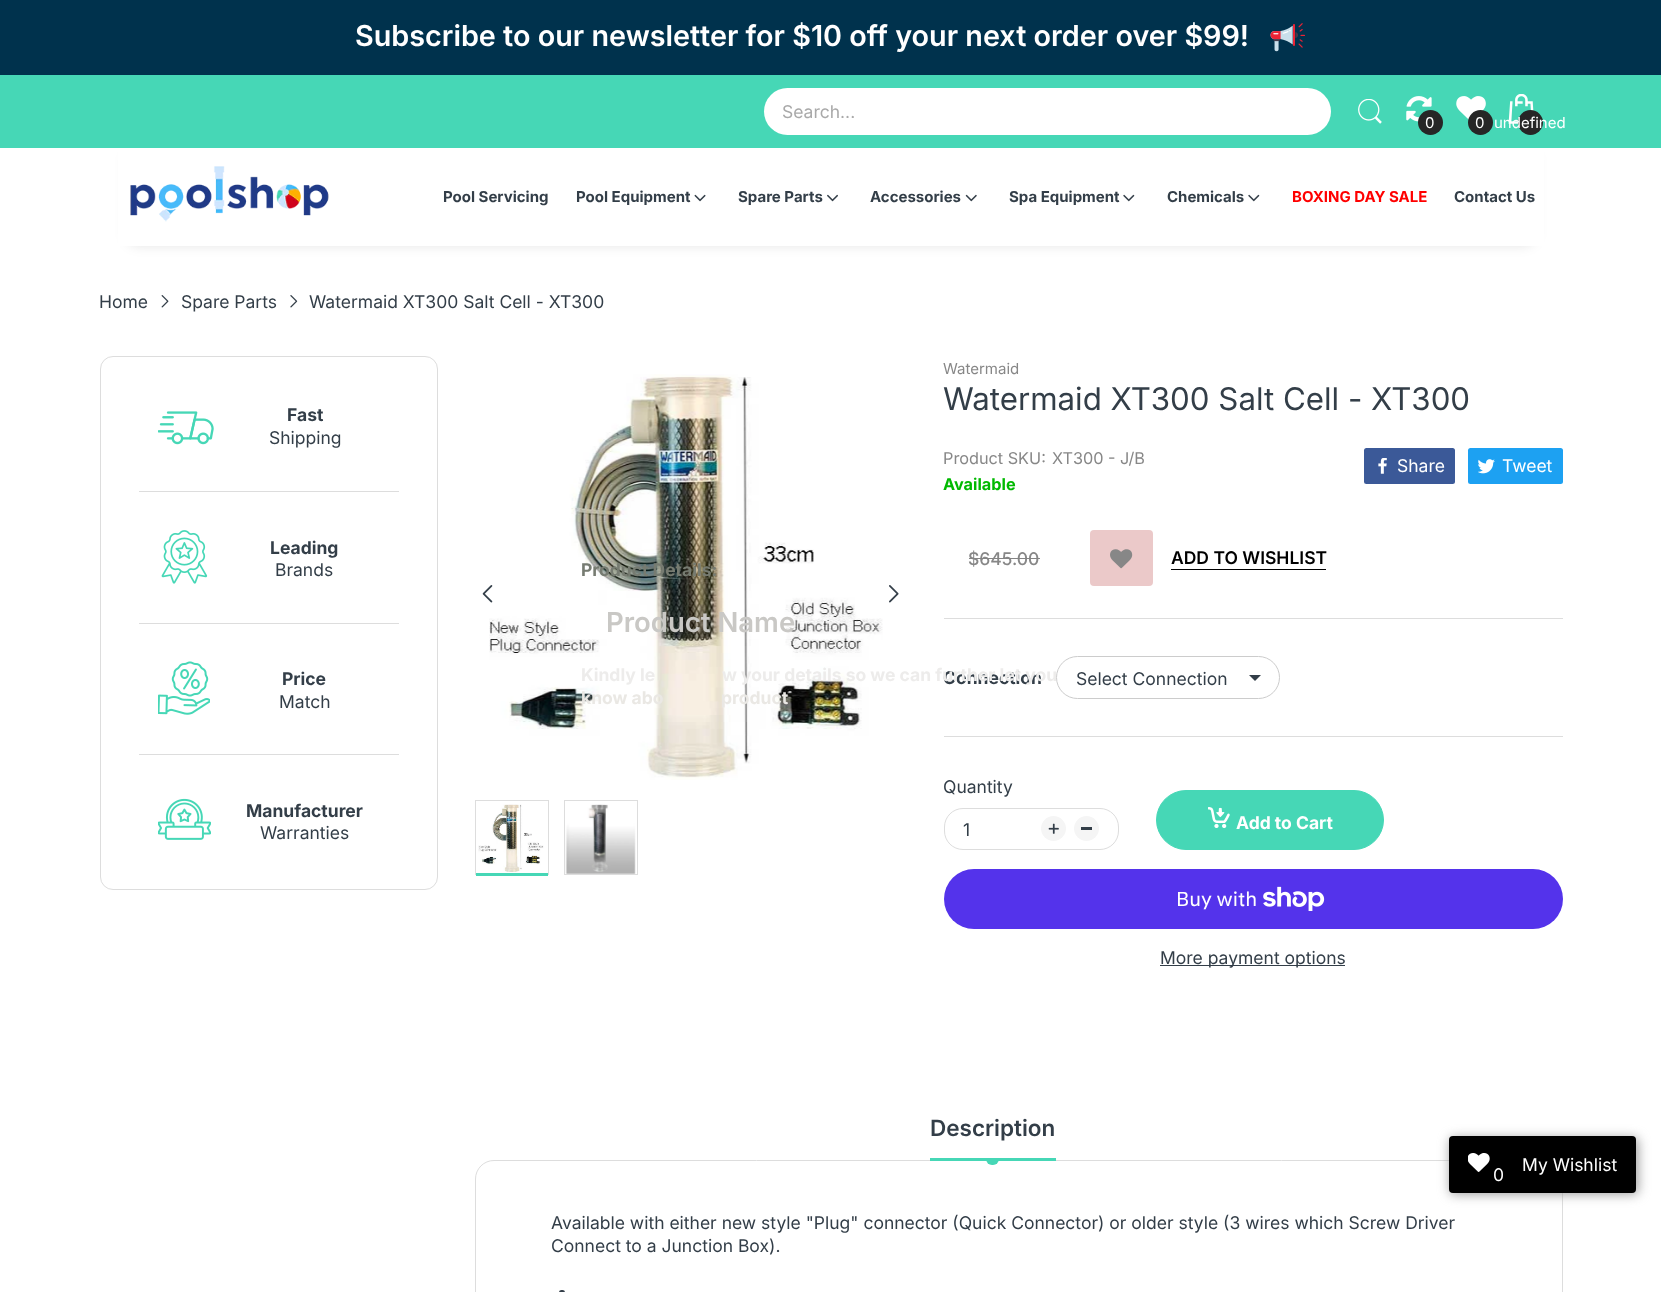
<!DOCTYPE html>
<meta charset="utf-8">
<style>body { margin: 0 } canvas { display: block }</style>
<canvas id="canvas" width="1661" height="1292"></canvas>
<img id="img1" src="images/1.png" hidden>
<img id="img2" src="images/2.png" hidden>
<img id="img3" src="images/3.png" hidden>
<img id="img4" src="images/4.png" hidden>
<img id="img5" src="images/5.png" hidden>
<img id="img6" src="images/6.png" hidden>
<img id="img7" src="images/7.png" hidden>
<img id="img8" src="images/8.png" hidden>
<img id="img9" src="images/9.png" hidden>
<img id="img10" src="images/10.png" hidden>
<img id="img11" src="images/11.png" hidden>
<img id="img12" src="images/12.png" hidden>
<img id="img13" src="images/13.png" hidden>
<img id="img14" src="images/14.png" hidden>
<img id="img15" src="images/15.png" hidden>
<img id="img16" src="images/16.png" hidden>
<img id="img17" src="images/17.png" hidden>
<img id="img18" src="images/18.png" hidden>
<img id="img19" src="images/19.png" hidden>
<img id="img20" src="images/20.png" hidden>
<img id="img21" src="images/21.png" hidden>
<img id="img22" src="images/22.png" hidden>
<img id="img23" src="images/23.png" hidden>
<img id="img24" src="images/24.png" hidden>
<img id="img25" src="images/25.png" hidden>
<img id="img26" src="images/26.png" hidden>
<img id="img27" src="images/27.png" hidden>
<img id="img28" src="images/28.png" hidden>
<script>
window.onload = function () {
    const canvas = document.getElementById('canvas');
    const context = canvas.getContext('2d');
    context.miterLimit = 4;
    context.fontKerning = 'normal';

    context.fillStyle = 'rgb(255, 255, 255)';
    context.fillRect(0, 0, 1661, 1292);
    context.fillStyle = 'rgb(0, 50, 77)';
    context.fillRect(0, 0, 1661, 75);
    context.drawImage(document.getElementById('img1'), 1270, 23, 35, 29);
    context.fillStyle = 'rgba(0, 0, 0, 0.1)';
    context.filter = 'blur(6px)';
    context.beginPath();
    context.roundRect(126, 148, 1410, 98, 13);
    context.fill();
    context.filter = 'none';
    context.fillStyle = 'rgb(70, 215, 182)';
    context.fillRect(0, 75, 1661, 73);
    context.fillStyle = 'rgb(255, 255, 255)';
    context.beginPath();
    context.roundRect(764, 88, 567, 47, 23.5);
    context.fill();
    context.drawImage(document.getElementById('img2'), 1358, 99, 24, 25);
    context.drawImage(document.getElementById('img3'), 1406, 96, 26, 26);
    context.fillStyle = 'rgb(38, 38, 38)';
    context.beginPath();
    context.arc(1430.5, 122.5, 12.5, 0, 2 * Math.PI);
    context.fill();
    context.drawImage(document.getElementById('img4'), 1456, 96, 30, 24);
    context.beginPath();
    context.arc(1480.5, 122.5, 12.5, 0, 2 * Math.PI);
    context.fill();
    context.drawImage(document.getElementById('img5'), 1508, 94, 26, 30);
    context.beginPath();
    context.arc(1530.5, 122.5, 12.5, 0, 2 * Math.PI);
    context.fill();
    context.fillStyle = 'rgb(255, 255, 255)';
    context.fillRect(118, 148, 1426, 98);
    context.drawImage(document.getElementById('img6'), 130, 166, 199, 56);
    context.drawImage(document.getElementById('img7'), 694, 194, 12, 8);
    context.drawImage(document.getElementById('img8'), 827, 194, 11, 8);
    context.drawImage(document.getElementById('img9'), 965, 194, 12, 8);
    context.drawImage(document.getElementById('img10'), 1123, 194, 12, 8);
    context.drawImage(document.getElementById('img10'), 1248, 194, 12, 8);
    context.drawImage(document.getElementById('img11'), 161, 295, 8, 13);
    context.drawImage(document.getElementById('img12'), 290, 295, 8, 13);
    context.beginPath();
    context.roundRect(100.5, 356.5, 337, 533, 12.5);
    context.strokeStyle = 'rgb(221, 221, 221)';
    context.stroke();
    context.fillStyle = 'rgb(221, 221, 221)';
    context.fillRect(139, 491, 260, 1);
    context.drawImage(document.getElementById('img13'), 158, 411, 56, 34);
    context.fillRect(139, 623, 260, 1);
    context.drawImage(document.getElementById('img14'), 161, 530, 47, 54);
    context.fillRect(139, 754, 260, 1);
    context.drawImage(document.getElementById('img15'), 158, 661, 52, 54);
    context.drawImage(document.getElementById('img16'), 158, 798, 53, 42);
    context.drawImage(document.getElementById('img17'), 489, 374, 394, 406);
    context.drawImage(document.getElementById('img18'), 482, 585, 11, 18);
    context.drawImage(document.getElementById('img19'), 889, 585, 10, 18);
    context.strokeRect(475.5, 800.5, 73, 74);
    context.drawImage(document.getElementById('img20'), 478, 804, 66, 68);
    context.fillStyle = 'rgb(70, 215, 182)';
    context.fillRect(476, 873, 72, 3);
    context.strokeRect(564.5, 800.5, 73, 74);
    context.drawImage(document.getElementById('img21'), 565, 804, 71, 70);
    context.fillStyle = 'rgb(59, 89, 152)';
    context.beginPath();
    context.roundRect(1364, 448, 91, 36, 2.5);
    context.fill();
    context.drawImage(document.getElementById('img22'), 1378, 458, 9, 16);
    context.fillStyle = 'rgb(29, 161, 242)';
    context.beginPath();
    context.roundRect(1468, 448, 95, 36, 2.5);
    context.fill();
    context.drawImage(document.getElementById('img23'), 1478, 459, 17, 15);
    context.fillStyle = 'rgb(235, 201, 201)';
    context.beginPath();
    context.roundRect(1090, 530, 63, 56, 4);
    context.fill();
    context.drawImage(document.getElementById('img24'), 1110, 549, 23, 20);
    context.fillStyle = 'rgb(0, 0, 0)';
    context.fillRect(1171, 569, 155, 1);
    context.fillStyle = 'rgb(221, 221, 221)';
    context.fillRect(944, 618, 619, 1);
    context.fillRect(944, 736, 619, 1);
    context.beginPath();
    context.roundRect(1056.5, 656.5, 223, 42, 21);
    context.strokeStyle = 'rgb(204, 204, 204)';
    context.stroke();
    context.fillStyle = 'rgb(51, 62, 72)';
    context.beginPath();
    context.moveTo(1249, 675);
    context.lineTo(1255, 681);
    context.lineTo(1261, 675);
    context.closePath();
    context.fill('evenodd');
    context.beginPath();
    context.roundRect(944.5, 808.5, 174, 41, 18.5);
    context.strokeStyle = 'rgb(221, 221, 221)';
    context.stroke();
    context.fillStyle = 'rgb(245, 245, 245)';
    context.beginPath();
    context.arc(1053.5, 828.5, 12.5, 0, 2 * Math.PI);
    context.fill();
    context.drawImage(document.getElementById('img25'), 1048, 823, 11, 11);
    context.beginPath();
    context.arc(1086.5, 828.5, 12.5, 0, 2 * Math.PI);
    context.fill();
    context.fillStyle = 'rgb(51, 62, 72)';
    context.fillRect(1081, 827, 11, 3);
    context.fillStyle = 'rgb(70, 215, 182)';
    context.beginPath();
    context.roundRect(1156.5, 790.5, 227, 59, 29.5);
    context.fill();
    context.strokeStyle = 'rgb(70, 215, 182)';
    context.stroke();
    context.drawImage(document.getElementById('img26'), 1208, 807, 22, 22);
    context.fillStyle = 'rgb(84, 51, 235)';
    context.beginPath();
    context.roundRect(944, 869, 619, 60, 30);
    context.fill();
    context.drawImage(document.getElementById('img27'), 1263, 886, 62, 25);
    context.fillStyle = 'rgb(51, 62, 72)';
    context.fillRect(1160, 965, 185, 1);
    context.beginPath();
    context.roundRect(475.5, 1160.5, 1087, 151, 18.5);
    context.strokeStyle = 'rgb(221, 221, 221)';
    context.stroke();
    context.fillStyle = 'rgb(70, 215, 182)';
    context.fillRect(930, 1158, 126, 3);
    context.beginPath();
    context.roundRect(986, 1158, 13, 7, [0, 0, 6, 6]);
    context.fill();
    context.fillStyle = 'rgb(51, 62, 72)';
    context.beginPath();
    context.roundRect(559, 1290, 6, 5, 3);
    context.fill();
    context.fillStyle = 'rgb(153, 153, 153)';
    context.filter = 'blur(6px)';
    context.beginPath();
    context.roundRect(1450, 1138, 188, 56, 4);
    context.fill();
    context.filter = 'none';
    context.fillStyle = 'rgb(0, 0, 0)';
    context.beginPath();
    context.roundRect(1449, 1136, 187, 57, 4);
    context.fill();
    context.drawImage(document.getElementById('img28'), 1468, 1153, 22, 19);
    context.font = '600 28.75px Inter';
    context.fillStyle = 'rgb(255, 255, 255)';
    context.fillText('Subscribe to our newsletter for $10 off your next order over $99!', 355, 46);
    context.font = '17.5px Inter';
    context.fillStyle = 'rgb(169, 169, 169)';
    context.fillText('Search...', 782, 118);
    context.font = '15px Inter';
    context.fillStyle = 'rgb(255, 255, 255)';
    context.fillText('0', 1425, 128);
    context.fillText('0', 1475, 128);
    context.fillText('undefined', 1494, 128);
    context.font = 'bold 15px Inter';
    context.fillStyle = 'rgb(51, 62, 72)';
    context.fillText('Pool Servicing', 443, 202);
    context.fillText('Pool Equipment', 576, 202);
    context.fillText('Spare Parts', 738, 202);
    context.fillText('Accessories', 870, 202);
    context.fillText('Spa Equipment', 1009, 202);
    context.fillText('Chemicals', 1167, 202);
    context.fillStyle = 'rgb(255, 0, 0)';
    context.fillText('BOXING DAY SALE', 1292, 202);
    context.fillStyle = 'rgb(51, 62, 72)';
    context.fillText('Contact Us', 1454, 202);
    context.font = '17.5px Inter';
    context.fillText('Home', 99, 308);
    context.fillText('Spare Parts', 181, 308);
    context.fillText('Watermaid XT300 Salt Cell - XT300', 309, 308);
    context.font = 'bold 17.5px Inter';
    context.fillText('Fast', 287, 421);
    context.font = '17.5px Inter';
    context.fillText('Shipping', 269, 444);
    context.font = 'bold 17.5px Inter';
    context.fillText('Leading', 270, 554);
    context.font = '17.5px Inter';
    context.fillText('Brands', 275, 576);
    context.font = 'bold 17.5px Inter';
    context.fillText('Price', 282, 685);
    context.font = '17.5px Inter';
    context.fillText('Match', 279, 708);
    context.font = 'bold 17.5px Inter';
    context.fillText('Manufacturer', 246, 817);
    context.font = '17.5px Inter';
    context.fillText('Warranties', 260, 839);
    context.font = '15px Inter';
    context.fillStyle = 'rgb(135, 135, 135)';
    context.fillText('Watermaid', 943, 374);
    context.font = '31.25px Inter';
    context.fillStyle = 'rgb(51, 62, 72)';
    context.fillText('Watermaid XT300 Salt Cell - XT300', 943, 410);
    context.font = '16.25px Inter';
    context.fillStyle = 'rgb(135, 135, 135)';
    context.fillText('Product SKU:', 943, 464);
    context.fillText('XT300 - J/B', 1052, 464);
    context.font = 'bold 16.25px Inter';
    context.fillStyle = 'rgb(0, 185, 0)';
    context.fillText('Available', 943, 490);
    context.font = '17.5px Inter';
    context.fillStyle = 'rgb(255, 255, 255)';
    context.fillText('Share', 1397, 472);
    context.fillText('Tweet', 1502, 472);
    context.font = '500 17.5px Inter';
    context.fillStyle = 'rgb(135, 135, 135)';
    context.fillText('$645.00', 968, 565);
    context.fillStyle = 'rgb(132, 132, 132)';
    context.fillRect(969, 558, 71, 1);
    context.font = '600 17.5px Inter';
    context.fillStyle = 'rgb(0, 0, 0)';
    context.fillText('ADD TO WISHLIST', 1171, 564);
    context.font = 'bold 17.5px Inter';
    context.fillStyle = 'rgb(51, 62, 72)';
    context.fillText('Connection', 943, 684);
    context.font = '17.5px Inter';
    context.fillText('Select Connection', 1076, 685);
    context.fillText('Quantity', 943, 793);
    context.fillText('1', 963, 836);
    context.font = 'bold 17.5px Inter';
    context.fillStyle = 'rgb(255, 255, 255)';
    context.fillText('Add to Cart', 1236, 829);
    context.font = '20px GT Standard';
    context.fillText('Buy with', 1176, 906);
    context.font = '17.5px Inter';
    context.fillStyle = 'rgb(51, 62, 72)';
    context.fillText('More payment options', 1160, 964);
    context.font = '600 22.5px Inter';
    context.fillText('Description', 930, 1136);
    context.font = '17.5px Inter';
    context.fillText('Available with either new style "Plug" connector (Quick Connector) or older style (3 wires which Screw Driver', 551, 1229);
    context.fillText('Connect to a Junction Box).', 551, 1252);
    context.font = 'bold 17.5px Inter';
    context.fillStyle = 'rgb(118, 123, 113)';
    context.fillText('Product Details:', 581, 576);
    context.font = '600 27.5px Inter';
    context.fillStyle = 'rgb(201, 200, 197)';
    context.fillText('Product Name', 606, 632);
    context.font = 'bold 17.5px Inter';
    context.fillStyle = 'rgb(237, 236, 235)';
    context.fillText('Kindly le', 581, 681);
    context.fillText('w your details so we can further let you', 722, 681);
    context.fillStyle = 'rgb(234, 232, 228)';
    context.fillText('know abo', 581, 704);
    context.fillText('product', 721, 704);
    context.font = '17.5px Inter';
    context.fillStyle = 'rgb(255, 255, 255)';
    context.fillText('0', 1493, 1181);
    context.fillText('My Wishlist', 1522, 1171);
};
</script>
